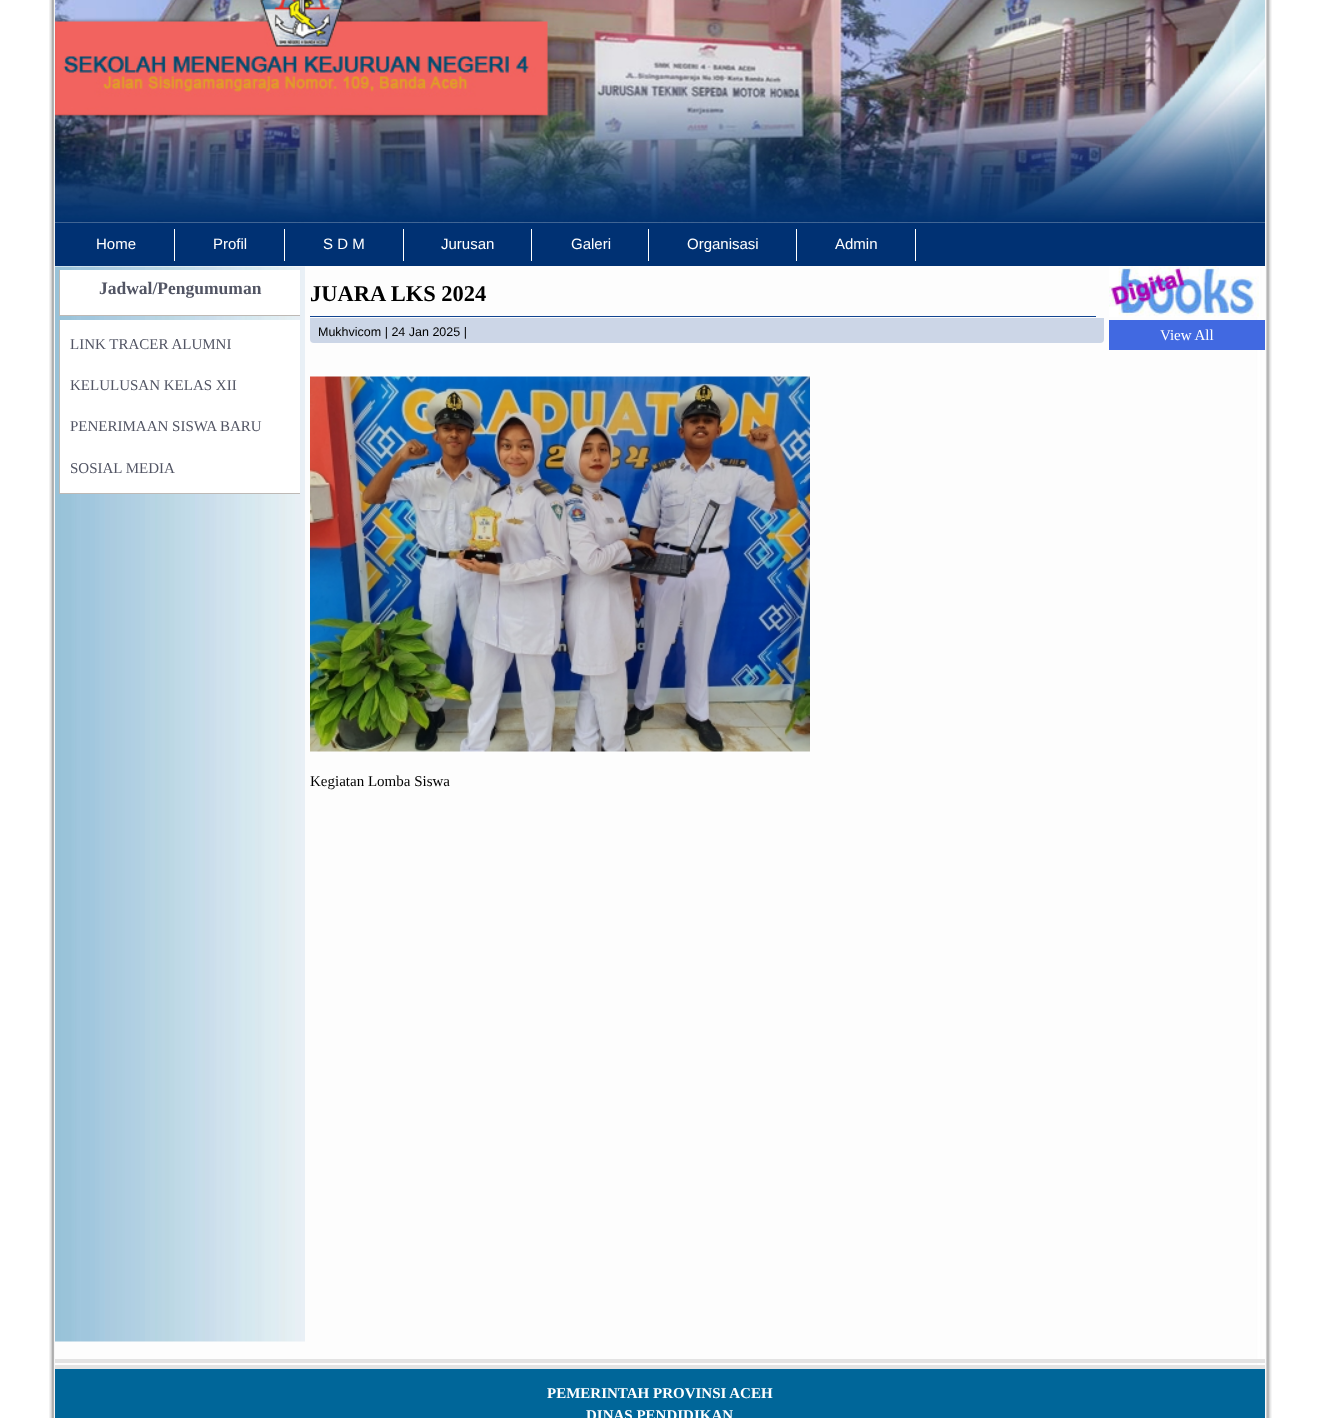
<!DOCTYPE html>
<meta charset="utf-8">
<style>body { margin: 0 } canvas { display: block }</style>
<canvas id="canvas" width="1330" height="1418"></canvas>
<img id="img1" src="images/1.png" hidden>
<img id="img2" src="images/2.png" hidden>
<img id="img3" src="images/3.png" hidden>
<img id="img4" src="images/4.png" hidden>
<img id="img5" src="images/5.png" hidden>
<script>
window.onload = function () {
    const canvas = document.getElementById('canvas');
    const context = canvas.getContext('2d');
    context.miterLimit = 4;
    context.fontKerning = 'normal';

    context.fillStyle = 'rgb(255, 255, 255)';
    context.fillRect(0, 0, 1330, 1418);
    context.drawImage(document.getElementById('img1'), 49, 0, 1223, 1418);
    context.drawImage(document.getElementById('img2'), 55, 0, 1210, 223);
    context.fillStyle = 'rgb(0, 49, 115)';
    context.fillRect(55, 223, 1210, 43);
    context.fillStyle = 'rgb(255, 255, 255)';
    context.fillRect(174, 229, 1, 32);
    context.fillRect(284, 229, 1, 32);
    context.fillRect(403, 229, 1, 32);
    context.fillRect(531, 229, 1, 32);
    context.fillRect(648, 229, 1, 32);
    context.fillRect(796, 229, 1, 32);
    context.fillRect(915, 229, 1, 32);
    context.drawImage(document.getElementById('img3'), 55, 266, 250, 1076);
    context.fillRect(60, 270, 240, 45);
    context.fillStyle = 'rgb(190, 185, 181)';
    context.fillRect(59, 315, 241, 1);
    context.fillRect(59, 270, 1, 46);
    context.fillStyle = 'rgb(255, 255, 255)';
    context.fillRect(60, 320, 240, 173);
    context.fillStyle = 'rgb(190, 185, 181)';
    context.fillRect(59, 493, 241, 1);
    context.fillRect(59, 320, 1, 174);
    context.fillStyle = 'rgb(18, 68, 144)';
    context.fillRect(310, 316, 786, 1);
    context.fillStyle = 'rgb(204, 214, 231)';
    context.beginPath();
    context.roundRect(310, 318, 794, 25, [0, 0, 4, 4]);
    context.fill();
    context.drawImage(document.getElementById('img4'), 310, 376, 500, 376);
    context.drawImage(document.getElementById('img5'), 1109, 266, 150, 51);
    context.fillStyle = 'rgb(65, 105, 225)';
    context.fillRect(1109, 320, 156, 30);
    context.fillStyle = 'rgb(227, 227, 227)';
    context.fillRect(55, 1359, 1210, 4);
    context.fillRect(55, 1365, 1210, 4);
    context.fillStyle = 'rgb(0, 102, 153)';
    context.fillRect(55, 1369, 1210, 49);
    context.font = '15px Liberation Sans';
    context.fillStyle = 'rgb(255, 255, 255)';
    context.fillText('Home', 96, 249);
    context.fillText('Profil', 213, 249);
    context.fillText('S D M', 323, 249);
    context.fillText('Jurusan', 441, 249);
    context.fillText('Galeri', 571, 249);
    context.fillText('Organisasi', 687, 249);
    context.fillText('Admin', 835, 249);
    context.font = 'bold 17.5px Liberation Serif';
    context.fillStyle = 'rgb(82, 85, 100)';
    context.fillText('Jadwal/Pengumuman', 99, 294);
    context.font = '15px Liberation Serif';
    context.fillText('LINK TRACER ALUMNI', 70, 349);
    context.fillText('KELULUSAN KELAS XII', 70, 390);
    context.fillText('PENERIMAAN SISWA BARU', 70, 431);
    context.fillText('SOSIAL MEDIA', 70, 473);
    context.font = 'bold 22.5px Liberation Serif';
    context.fillStyle = 'rgb(0, 0, 0)';
    context.fillText('JUARA LKS 2024', 310, 301);
    context.font = '12.5px Liberation Sans';
    context.fillText('Mukhvicom | 24 Jan 2025 |', 318, 336);
    context.font = '15px Liberation Serif';
    context.fillText('Kegiatan Lomba Siswa', 310, 786);
    context.fillStyle = 'rgb(255, 255, 255)';
    context.fillText('View All', 1160, 340);
    context.font = 'bold 15px Liberation Serif';
    context.fillText('PEMERINTAH PROVINSI ACEH', 547, 1398);
    context.fillText('DINAS PENDIDIKAN', 586, 1420);
};
</script>
